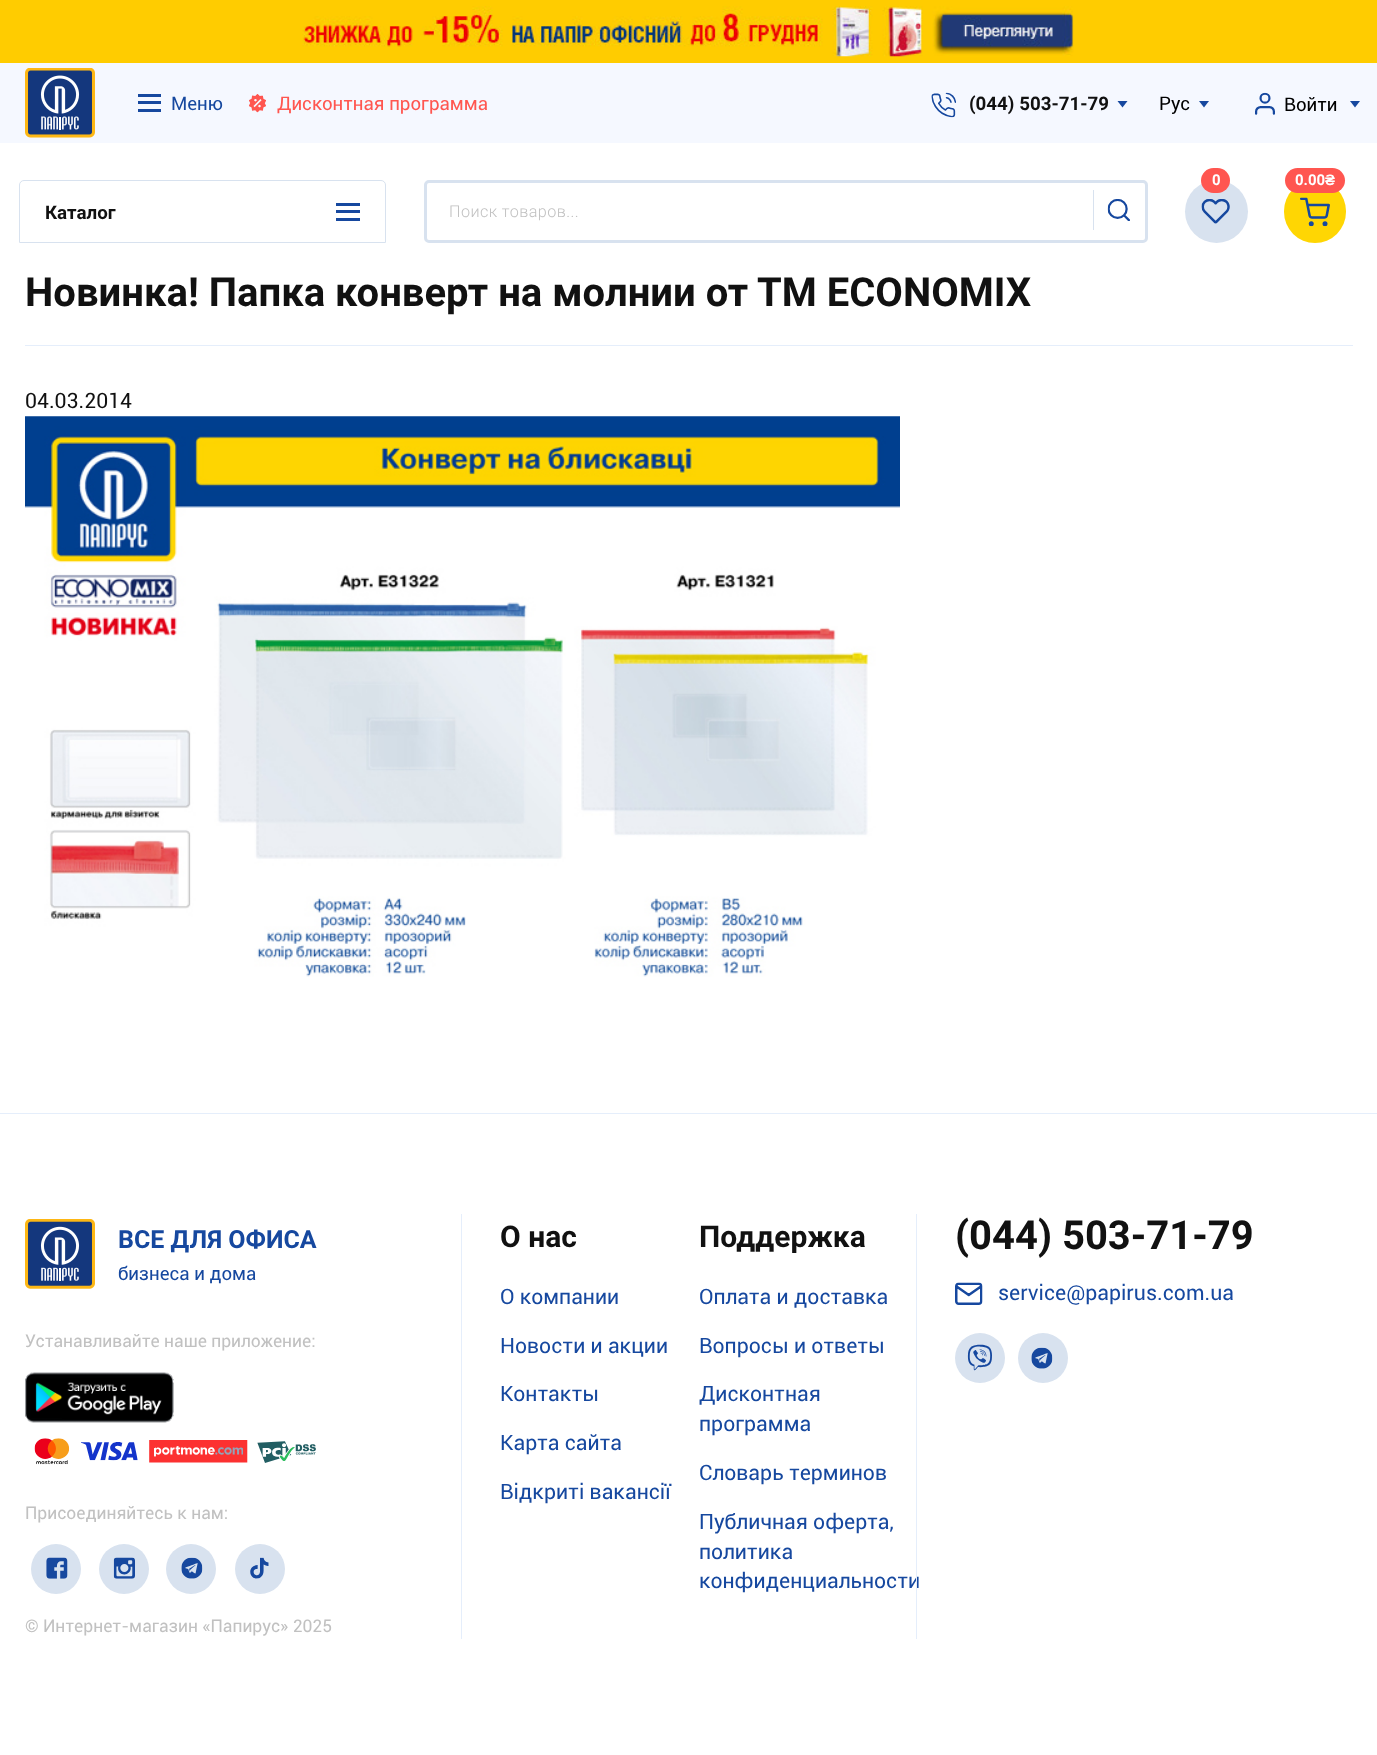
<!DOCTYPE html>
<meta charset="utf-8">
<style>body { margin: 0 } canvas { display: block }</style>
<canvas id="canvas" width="1377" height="1755"></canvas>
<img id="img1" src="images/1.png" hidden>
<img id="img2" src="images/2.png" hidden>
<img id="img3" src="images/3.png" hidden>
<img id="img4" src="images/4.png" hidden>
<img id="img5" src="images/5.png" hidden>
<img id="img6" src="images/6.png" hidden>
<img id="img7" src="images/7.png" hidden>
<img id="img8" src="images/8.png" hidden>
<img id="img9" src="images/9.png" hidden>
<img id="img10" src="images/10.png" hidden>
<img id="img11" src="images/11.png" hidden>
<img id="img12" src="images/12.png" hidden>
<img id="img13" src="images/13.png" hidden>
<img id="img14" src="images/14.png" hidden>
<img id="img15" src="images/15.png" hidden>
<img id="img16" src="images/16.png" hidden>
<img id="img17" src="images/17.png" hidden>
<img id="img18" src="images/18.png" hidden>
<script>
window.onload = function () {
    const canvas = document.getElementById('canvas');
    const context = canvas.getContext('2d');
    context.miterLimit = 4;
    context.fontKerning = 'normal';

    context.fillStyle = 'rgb(255, 255, 255)';
    context.fillRect(0, 0, 1377, 1755);
    context.fillStyle = 'rgb(255, 204, 0)';
    context.fillRect(0, 0, 1377, 63);
    context.drawImage(document.getElementById('img1'), 302, 6, 772, 51);
    context.fillStyle = 'rgb(245, 248, 255)';
    context.fillRect(0, 63, 1377, 80);
    context.drawImage(document.getElementById('img2'), 25, 68, 70, 70);
    context.fillStyle = 'rgb(22, 72, 159)';
    context.fillRect(138, 94, 23, 3);
    context.fillRect(138, 101, 23, 3);
    context.fillRect(138, 109, 23, 3);
    context.drawImage(document.getElementById('img3'), 249, 94, 17, 19);
    context.drawImage(document.getElementById('img4'), 931, 92, 25, 26);
    context.beginPath();
    context.moveTo(1117.5, 101);
    context.lineTo(1127.5, 101);
    context.lineTo(1122.5, 107.5);
    context.closePath();
    context.fill();
    context.beginPath();
    context.moveTo(1199, 101);
    context.lineTo(1209, 101);
    context.lineTo(1204, 107.5);
    context.closePath();
    context.fill();
    context.drawImage(document.getElementById('img5'), 1255, 92, 20, 23);
    context.beginPath();
    context.moveTo(1350, 101);
    context.lineTo(1360, 101);
    context.lineTo(1355, 107.5);
    context.closePath();
    context.fill();
    context.beginPath();
    context.roundRect(19.5, 180.5, 366, 62, [4.5, 4.5, 0, 0]);
    context.strokeStyle = 'rgb(216, 226, 239)';
    context.stroke();
    context.fillRect(336, 203, 24, 3);
    context.fillRect(336, 210, 24, 3);
    context.fillRect(336, 218, 24, 3);
    context.fillStyle = 'rgb(216, 226, 239)';
    context.beginPath();
    context.arc(1216.5, 211.5, 31.5, 0, 2 * Math.PI);
    context.fill();
    context.fillStyle = 'rgb(255, 86, 80)';
    context.beginPath();
    context.roundRect(1201, 168, 29, 25, 12.5);
    context.fill();
    context.drawImage(document.getElementById('img6'), 1201, 199, 29, 25);
    context.fillStyle = 'rgb(255, 214, 3)';
    context.beginPath();
    context.roundRect(1284, 180, 62, 63, 31);
    context.fill();
    context.fillStyle = 'rgb(255, 86, 80)';
    context.beginPath();
    context.roundRect(1285, 168, 60, 25, 12.5);
    context.fill();
    context.drawImage(document.getElementById('img7'), 1300, 197, 30, 30);
    context.beginPath();
    context.roundRect(425.5, 181.5, 721, 60, 3.5);
    context.lineWidth = 3;
    context.stroke();
    context.fillStyle = 'rgb(216, 226, 239)';
    context.fillRect(1093, 190, 1, 40);
    context.drawImage(document.getElementById('img8'), 1107, 199, 23, 22);
    context.fillStyle = 'rgb(229, 238, 251)';
    context.fillRect(25, 345, 1328, 1);
    context.drawImage(document.getElementById('img9'), 25, 416, 875, 561);
    context.fillRect(0, 1113, 1377, 1);
    context.drawImage(document.getElementById('img10'), 25, 1219, 70, 70);
    context.drawImage(document.getElementById('img11'), 25, 1372, 149, 51);
    context.drawImage(document.getElementById('img12'), 34, 1438, 282, 27);
    context.fillStyle = 'rgb(216, 226, 239)';
    context.beginPath();
    context.arc(56, 1569, 25, 0, 2 * Math.PI);
    context.fill();
    context.drawImage(document.getElementById('img13'), 46, 1557, 22, 22);
    context.beginPath();
    context.arc(124, 1569, 25, 0, 2 * Math.PI);
    context.fill();
    context.drawImage(document.getElementById('img14'), 113, 1557, 22, 22);
    context.beginPath();
    context.arc(191, 1569, 25, 0, 2 * Math.PI);
    context.fill();
    context.drawImage(document.getElementById('img15'), 181, 1557, 22, 22);
    context.beginPath();
    context.arc(260, 1569, 25, 0, 2 * Math.PI);
    context.fill();
    context.drawImage(document.getElementById('img16'), 250, 1557, 19, 22);
    context.fillStyle = 'rgb(229, 238, 251)';
    context.fillRect(461, 1214, 1, 425);
    context.drawImage(document.getElementById('img17'), 955, 1282, 28, 23);
    context.fillStyle = 'rgb(216, 226, 239)';
    context.beginPath();
    context.arc(980, 1358, 25, 0, 2 * Math.PI);
    context.fill();
    context.drawImage(document.getElementById('img18'), 967, 1344, 25, 27);
    context.beginPath();
    context.arc(1043, 1358, 25, 0, 2 * Math.PI);
    context.fill();
    context.drawImage(document.getElementById('img15'), 1031, 1347, 22, 22);
    context.font = '18.75px Roboto';
    context.fillStyle = 'rgb(22, 72, 159)';
    context.fillText('Меню', 171, 110);
    context.fillStyle = 'rgb(255, 86, 80)';
    context.fillText('Дисконтная программа', 277, 110);
    context.font = 'bold 18.75px Roboto';
    context.fillStyle = 'rgb(17, 17, 17)';
    context.fillText('(044) 503-71-79', 969, 110);
    context.font = '18.75px Roboto';
    context.fillStyle = 'rgb(0, 0, 0)';
    context.fillText('Рус', 1159, 110);
    context.fillText('Войти', 1284, 111);
    context.font = 'bold 18.75px Roboto';
    context.fillStyle = 'rgb(17, 17, 17)';
    context.fillText('Каталог', 45, 219);
    context.font = 'bold 15px Roboto';
    context.fillStyle = 'rgb(255, 255, 255)';
    context.fillText('0', 1212, 185);
    context.fillText('0.00', 1295, 185);
    context.font = 'bold 15px Liberation Sans';
    context.fillText('₴', 1325, 185);
    context.letterSpacing = '0.4px';
    context.font = '300 16.25px Roboto';
    context.fillStyle = 'rgb(193, 193, 193)';
    context.fillText('Поиск товаров...', 449, 217);
    context.letterSpacing = '0px';
    context.font = 'bold 40px Roboto';
    context.fillStyle = 'rgb(17, 17, 17)';
    context.fillText('Новинка! Папка конверт на молнии от ТМ ECONOMIX', 25, 306);
    context.font = '21.25px Roboto';
    context.fillText('04.03.2014', 25, 408);
    context.font = 'bold 25px Roboto';
    context.fillStyle = 'rgb(22, 72, 159)';
    context.fillText('ВСЕ ДЛЯ ОФИСА', 118, 1248);
    context.font = '18.75px Roboto';
    context.fillText('бизнеса и дома', 118, 1280);
    context.font = '17.5px Roboto';
    context.fillStyle = 'rgb(193, 193, 193)';
    context.fillText('Устанавливайте наше приложение:', 25, 1347);
    context.fillText('Присоединяйтесь к нам:', 25, 1519);
    context.fillText('© Интернет-магазин «Папирус» 2025', 25, 1632);
    context.font = 'bold 30px Roboto';
    context.fillStyle = 'rgb(17, 17, 17)';
    context.fillText('О нас', 500, 1247);
    context.font = '21.25px Roboto';
    context.fillStyle = 'rgb(22, 72, 159)';
    context.fillText('О компании', 500, 1304);
    context.fillText('Новости и акции', 500, 1353);
    context.fillText('Контакты', 500, 1401);
    context.fillText('Карта сайта', 500, 1450);
    context.fillText('Відкриті вакансії', 500, 1499);
    context.font = 'bold 30px Roboto';
    context.fillStyle = 'rgb(17, 17, 17)';
    context.fillText('Поддержка', 699, 1247);
    context.font = '21.25px Roboto';
    context.fillStyle = 'rgb(22, 72, 159)';
    context.fillText('Оплата и доставка', 699, 1304);
    context.fillText('Вопросы и ответы', 699, 1353);
    context.fillText('Дисконтная', 699, 1401);
    context.fillText('программа', 699, 1431);
    context.fillText('Словарь терминов', 699, 1480);
    context.fillText('Публичная оферта,', 699, 1529);
    context.fillText('политика', 699, 1559);
    context.fillText('конфиденциальности', 699, 1588);
    context.fillStyle = 'rgb(229, 238, 251)';
    context.fillRect(916, 1214, 1, 425);
    context.font = 'bold 40px Roboto';
    context.fillStyle = 'rgb(17, 17, 17)';
    context.fillText('(044) 503-71-79', 955, 1249);
    context.font = '21.25px Roboto';
    context.fillStyle = 'rgb(22, 72, 159)';
    context.fillText('service@papirus.com.ua', 998, 1300);
};
</script>
